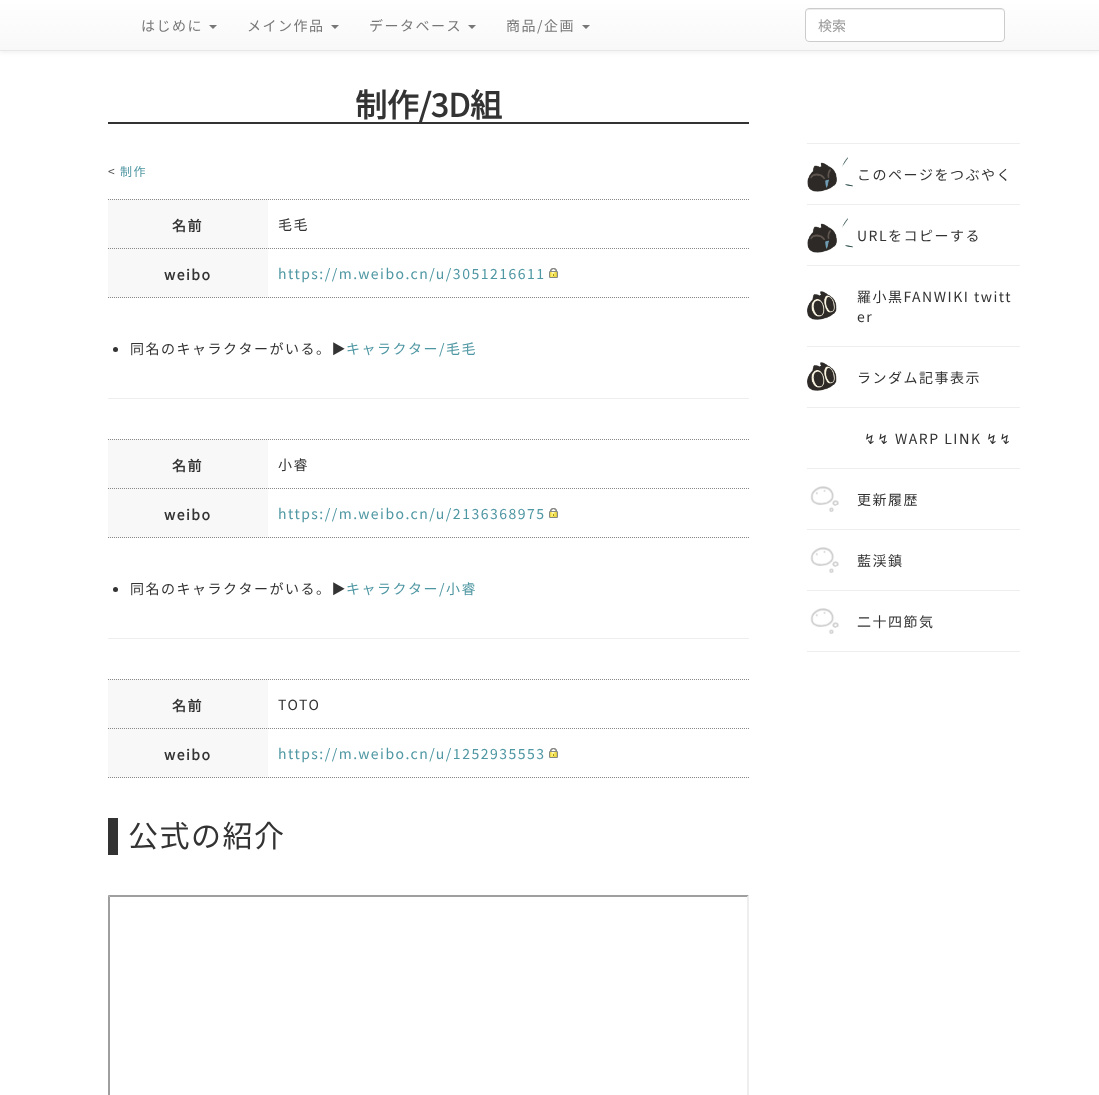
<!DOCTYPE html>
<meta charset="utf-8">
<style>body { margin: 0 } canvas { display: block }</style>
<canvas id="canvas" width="1099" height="1095"></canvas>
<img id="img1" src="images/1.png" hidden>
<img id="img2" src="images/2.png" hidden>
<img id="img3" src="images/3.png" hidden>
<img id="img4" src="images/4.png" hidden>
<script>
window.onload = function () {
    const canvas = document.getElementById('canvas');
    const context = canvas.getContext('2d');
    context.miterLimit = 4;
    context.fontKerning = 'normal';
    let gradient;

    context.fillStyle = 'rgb(255, 255, 255)';
    context.fillRect(0, 0, 1099, 1095);
    context.fillStyle = 'rgba(0, 0, 0, 0.07)';
    context.filter = 'blur(2.5px)';
    context.beginPath();
    context.rect(0, 1, 1099, 51);
    context.fill();
    context.filter = 'none';
    gradient = context.createLinearGradient(550, 0, 550, 50);
    gradient.addColorStop(0, 'rgb(255, 255, 255)');
    gradient.addColorStop(1, 'rgb(248, 248, 248)');
    context.fillStyle = gradient;
    context.fillRect(0, 0, 1099, 50);
    context.fillStyle = 'rgb(231, 231, 231)';
    context.fillRect(0, 50, 1099, 1);
    context.fillStyle = 'rgb(119, 119, 119)';
    context.beginPath();
    context.moveTo(209, 25);
    context.lineTo(217, 25);
    context.lineTo(213, 29);
    context.closePath();
    context.fill();
    context.beginPath();
    context.moveTo(331, 25);
    context.lineTo(339, 25);
    context.lineTo(335, 29);
    context.closePath();
    context.fill();
    context.beginPath();
    context.moveTo(468, 25);
    context.lineTo(476, 25);
    context.lineTo(472, 29);
    context.closePath();
    context.fill();
    context.beginPath();
    context.moveTo(582, 25);
    context.lineTo(590, 25);
    context.lineTo(586, 29);
    context.closePath();
    context.fill();
    context.fillStyle = 'rgb(255, 255, 255)';
    context.beginPath();
    context.roundRect(805, 8, 200, 34, 4);
    context.fill();
    context.fillStyle = 'rgb(236, 236, 236)';
    context.beginPath();
    context.moveTo(809, 10);
    context.lineTo(1001, 10);
    context.bezierCurveTo(1003, 10, 1004, 11, 1004, 13);
    context.bezierCurveTo(1004, 11, 1003, 9, 1001, 9);
    context.lineTo(809, 9);
    context.bezierCurveTo(807, 9, 806, 11, 806, 13);
    context.bezierCurveTo(806, 11, 807, 10, 809, 10);
    context.closePath();
    context.fill();
    context.beginPath();
    context.roundRect(805.5, 8.5, 199, 33, 3.5);
    context.strokeStyle = 'rgb(204, 204, 204)';
    context.stroke();
    context.fillStyle = 'rgb(51, 51, 51)';
    context.fillRect(108, 122, 641, 2);
    context.fillStyle = 'rgb(248, 248, 248)';
    context.fillRect(108, 199, 640, 99);
    context.beginPath();
    context.moveTo(108, 297.5);
    context.lineTo(749, 297.5);
    context.strokeStyle = 'rgb(136, 136, 136)';
    context.setLineDash([1, 1]);
    context.stroke();
    context.beginPath();
    context.moveTo(108, 199.5);
    context.lineTo(268, 199.5);
    context.stroke();
    context.fillStyle = 'rgb(255, 255, 255)';
    context.fillRect(268, 199, 480, 98);
    context.beginPath();
    context.moveTo(268, 199.5);
    context.lineTo(749, 199.5);
    context.stroke();
    context.beginPath();
    context.moveTo(108, 248.5);
    context.lineTo(268, 248.5);
    context.stroke();
    context.beginPath();
    context.moveTo(268, 248.5);
    context.lineTo(749, 248.5);
    context.stroke();
    context.drawImage(document.getElementById('img1'), 549, 268, 9, 10);
    context.fillStyle = 'rgb(51, 51, 51)';
    context.beginPath();
    context.arc(115.5, 349.5, 2.5, 0, 2 * Math.PI);
    context.fill();
    context.fillStyle = 'rgb(238, 238, 238)';
    context.fillRect(108, 398, 641, 1);
    context.fillStyle = 'rgb(248, 248, 248)';
    context.fillRect(108, 439, 640, 99);
    context.beginPath();
    context.moveTo(108, 537.5);
    context.lineTo(749, 537.5);
    context.stroke();
    context.beginPath();
    context.moveTo(108, 439.5);
    context.lineTo(268, 439.5);
    context.stroke();
    context.fillStyle = 'rgb(255, 255, 255)';
    context.fillRect(268, 439, 480, 98);
    context.beginPath();
    context.moveTo(268, 439.5);
    context.lineTo(749, 439.5);
    context.stroke();
    context.beginPath();
    context.moveTo(108, 488.5);
    context.lineTo(268, 488.5);
    context.stroke();
    context.beginPath();
    context.moveTo(268, 488.5);
    context.lineTo(749, 488.5);
    context.stroke();
    context.drawImage(document.getElementById('img1'), 549, 508, 9, 10);
    context.fillStyle = 'rgb(51, 51, 51)';
    context.beginPath();
    context.arc(115.5, 589.5, 2.5, 0, 2 * Math.PI);
    context.fill();
    context.fillStyle = 'rgb(238, 238, 238)';
    context.fillRect(108, 638, 641, 1);
    context.fillStyle = 'rgb(248, 248, 248)';
    context.fillRect(108, 679, 640, 99);
    context.beginPath();
    context.moveTo(108, 777.5);
    context.lineTo(749, 777.5);
    context.stroke();
    context.beginPath();
    context.moveTo(108, 679.5);
    context.lineTo(268, 679.5);
    context.stroke();
    context.fillStyle = 'rgb(255, 255, 255)';
    context.fillRect(268, 679, 480, 98);
    context.beginPath();
    context.moveTo(268, 679.5);
    context.lineTo(749, 679.5);
    context.stroke();
    context.beginPath();
    context.moveTo(108, 728.5);
    context.lineTo(268, 728.5);
    context.stroke();
    context.beginPath();
    context.moveTo(268, 728.5);
    context.lineTo(749, 728.5);
    context.stroke();
    context.drawImage(document.getElementById('img1'), 549, 748, 9, 10);
    context.fillStyle = 'rgb(51, 51, 51)';
    context.fillRect(108, 818, 10, 37);
    context.fillStyle = 'rgb(159, 159, 159)';
    context.beginPath();
    context.moveTo(108, 895);
    context.lineTo(749, 895);
    context.lineTo(747, 897);
    context.lineTo(110, 897);
    context.closePath();
    context.fill();
    context.beginPath();
    context.moveTo(108, 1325);
    context.lineTo(108, 895);
    context.lineTo(110, 897);
    context.lineTo(110, 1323);
    context.closePath();
    context.fill();
    context.fillStyle = 'rgb(238, 238, 238)';
    context.beginPath();
    context.moveTo(749, 895);
    context.lineTo(749, 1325);
    context.lineTo(747, 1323);
    context.lineTo(747, 897);
    context.closePath();
    context.fill();
    context.fillRect(807, 143, 213, 1);
    context.drawImage(document.getElementById('img2'), 807, 157, 46, 35);
    context.fillRect(807, 204, 213, 1);
    context.drawImage(document.getElementById('img2'), 807, 218, 46, 35);
    context.fillRect(807, 265, 213, 1);
    context.drawImage(document.getElementById('img3'), 807, 291, 30, 29);
    context.fillRect(807, 346, 213, 1);
    context.drawImage(document.getElementById('img3'), 807, 362, 30, 29);
    context.fillRect(807, 407, 213, 1);
    context.fillRect(807, 468, 213, 1);
    context.drawImage(document.getElementById('img4'), 810, 486, 29, 26);
    context.fillRect(807, 529, 213, 1);
    context.drawImage(document.getElementById('img4'), 810, 547, 29, 26);
    context.fillRect(807, 590, 213, 1);
    context.drawImage(document.getElementById('img4'), 810, 608, 29, 26);
    context.fillRect(807, 651, 213, 1);
    context.letterSpacing = '1.5px';
    context.font = '100 14px Noto Sans JP';
    context.fillStyle = 'rgb(119, 119, 119)';
    context.fillText('はじめに', 141, 31);
    context.fillText('メイン作品', 247, 31);
    context.fillText('データベース', 369, 31);
    context.fillText('商品/企画', 506, 31);
    context.letterSpacing = '0px';
    context.fillStyle = 'rgb(153, 153, 153)';
    context.fillText('検索', 818, 31);
    context.letterSpacing = '-0.25px';
    context.font = 'bold 32px Noto Sans JP';
    context.fillStyle = 'rgb(51, 51, 51)';
    context.fillText('制作/3D組', 355, 117);
    context.letterSpacing = '1.5px';
    context.font = '100 12px Noto Sans JP';
    context.fillStyle = 'rgb(84, 84, 84)';
    context.fillText('<', 108, 176);
    context.fillStyle = 'rgb(79, 151, 163)';
    context.fillText('制作', 120, 176);
    context.font = 'bold 14px Noto Sans JP';
    context.fillStyle = 'rgb(51, 51, 51)';
    context.fillText('名前', 172, 231);
    context.font = '100 14px Noto Sans JP';
    context.fillText('毛毛', 278, 230);
    context.font = 'bold 14px Noto Sans JP';
    context.fillText('weibo', 164, 280);
    context.font = '100 14px Noto Sans JP';
    context.fillStyle = 'rgb(79, 151, 163)';
    context.fillText('https://m.weibo.cn/u/3051216611', 278, 279);
    context.fillStyle = 'rgb(51, 51, 51)';
    context.fillText('同名のキャラクターがいる。▶︎', 130, 354);
    context.fillStyle = 'rgb(79, 151, 163)';
    context.fillText('キャラクター/毛毛', 346, 354);
    context.font = 'bold 14px Noto Sans JP';
    context.fillStyle = 'rgb(51, 51, 51)';
    context.fillText('名前', 172, 471);
    context.font = '100 14px Noto Sans JP';
    context.fillText('小睿', 278, 470);
    context.font = 'bold 14px Noto Sans JP';
    context.fillText('weibo', 164, 520);
    context.font = '100 14px Noto Sans JP';
    context.fillStyle = 'rgb(79, 151, 163)';
    context.fillText('https://m.weibo.cn/u/2136368975', 278, 519);
    context.fillStyle = 'rgb(51, 51, 51)';
    context.fillText('同名のキャラクターがいる。▶︎', 130, 594);
    context.fillStyle = 'rgb(79, 151, 163)';
    context.fillText('キャラクター/小睿', 346, 594);
    context.font = 'bold 14px Noto Sans JP';
    context.fillStyle = 'rgb(51, 51, 51)';
    context.fillText('名前', 172, 711);
    context.font = '100 14px Noto Sans JP';
    context.fillText('TOTO', 278, 710);
    context.font = 'bold 14px Noto Sans JP';
    context.fillText('weibo', 164, 760);
    context.font = '100 14px Noto Sans JP';
    context.fillStyle = 'rgb(79, 151, 163)';
    context.fillText('https://m.weibo.cn/u/1252935553', 278, 759);
    context.font = '100 30px Noto Sans JP';
    context.fillStyle = 'rgb(51, 51, 51)';
    context.fillText('公式の紹介', 128, 847);
    context.font = '100 14px Noto Sans JP';
    context.fillText('このページをつぶやく', 857, 180);
    context.fillText('URLをコピーする', 857, 241);
    context.fillText('羅小黒FANWIKI twitt', 857, 302);
    context.fillText('er', 857, 322);
    context.fillText('ランダム記事表示', 857, 383);
    context.font = '14px DejaVu Sans';
    context.fillText('↯↯', 864, 444);
    context.font = '100 14px Noto Sans JP';
    context.fillText('WARP LI', 895, 444);
    context.font = '14px DejaVu Sans';
    context.fillText('N', 959, 444);
    context.font = '100 14px Noto Sans JP';
    context.fillText('K', 971, 444);
    context.font = '14px DejaVu Sans';
    context.fillText('↯↯', 986, 444);
    context.font = '100 14px Noto Sans JP';
    context.fillText('更新履歴', 857, 505);
    context.fillText('藍渓鎮', 857, 566);
    context.fillText('二十四節気', 857, 627);
};
</script>
